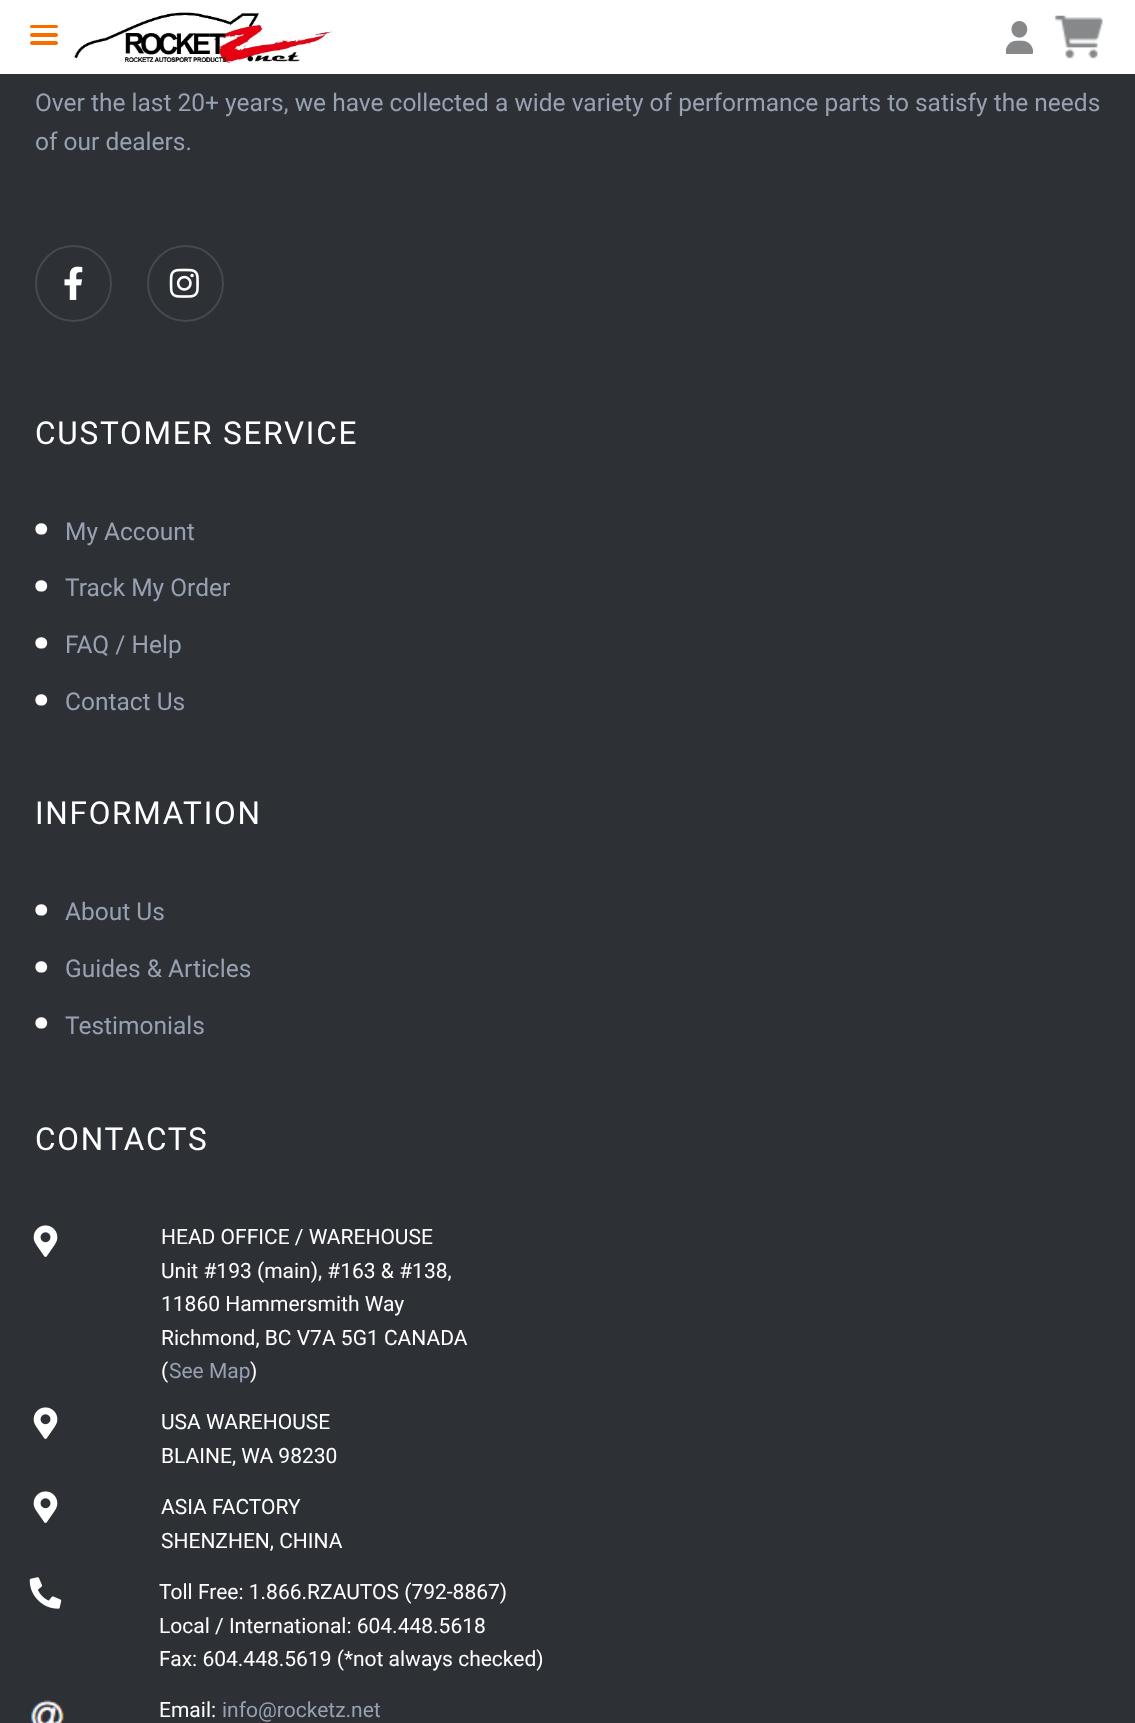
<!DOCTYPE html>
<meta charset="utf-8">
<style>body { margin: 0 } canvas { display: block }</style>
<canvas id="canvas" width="1135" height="1723"></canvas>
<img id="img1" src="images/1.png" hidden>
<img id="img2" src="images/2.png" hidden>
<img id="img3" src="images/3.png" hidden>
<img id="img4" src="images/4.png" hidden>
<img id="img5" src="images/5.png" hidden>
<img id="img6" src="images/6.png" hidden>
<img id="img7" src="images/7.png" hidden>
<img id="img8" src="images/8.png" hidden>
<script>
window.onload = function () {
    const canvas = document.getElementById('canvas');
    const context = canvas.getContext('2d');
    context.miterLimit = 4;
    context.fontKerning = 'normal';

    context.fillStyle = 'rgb(45, 48, 53)';
    context.fillRect(0, 0, 1135, 1723);
    context.fillStyle = 'rgb(255, 255, 255)';
    context.fillRect(0, 0, 1135, 74);
    context.fillStyle = 'rgb(248, 109, 0)';
    context.beginPath();
    context.roundRect(30, 25, 28, 3, 1.5);
    context.fill();
    context.beginPath();
    context.roundRect(30, 33, 28, 4, 2);
    context.fill();
    context.beginPath();
    context.roundRect(30, 41, 28, 4, 2);
    context.fill();
    context.drawImage(document.getElementById('img1'), 74, 12, 258, 53);
    context.drawImage(document.getElementById('img2'), 1006, 21, 27, 33);
    context.drawImage(document.getElementById('img3'), 1054, 15, 49, 44);
    context.beginPath();
    context.arc(73.5, 283.5, 37.5, 0, 2 * Math.PI);
    context.strokeStyle = 'rgb(70, 73, 78)';
    context.lineWidth = 2;
    context.stroke();
    context.drawImage(document.getElementById('img4'), 64, 266, 19, 34);
    context.beginPath();
    context.arc(185.5, 283.5, 37.5, 0, 2 * Math.PI);
    context.stroke();
    context.drawImage(document.getElementById('img5'), 169, 268, 30, 30);
    context.drawImage(document.getElementById('img6'), 33, 1225, 25, 32);
    context.drawImage(document.getElementById('img6'), 33, 1407, 25, 32);
    context.drawImage(document.getElementById('img6'), 33, 1491, 25, 32);
    context.drawImage(document.getElementById('img7'), 29, 1577, 33, 32);
    context.drawImage(document.getElementById('img8'), 31, 1700, 33, 23);
    context.font = '24.5px Roboto';
    context.fillStyle = 'rgb(151, 161, 178)';
    context.fillText('Over the last 20+ years, we have collected a wide variety of performance parts to satisfy the needs', 35, 111);
    context.fillText('of our dealers.', 35, 150);
    context.letterSpacing = '1.75px';
    context.font = '31.5px Roboto';
    context.fillStyle = 'rgb(255, 255, 255)';
    context.fillText('CUSTOMER SERVICE', 35, 444);
    context.letterSpacing = '0px';
    context.font = '105px Roboto';
    context.fillText('.', 28, 534);
    context.font = '24.5px Roboto';
    context.fillStyle = 'rgb(151, 161, 178)';
    context.fillText('My Account', 65, 540);
    context.font = '105px Roboto';
    context.fillStyle = 'rgb(255, 255, 255)';
    context.fillText('.', 28, 591);
    context.font = '24.5px Roboto';
    context.fillStyle = 'rgb(151, 161, 178)';
    context.fillText('Track My Order', 65, 596);
    context.font = '105px Roboto';
    context.fillStyle = 'rgb(255, 255, 255)';
    context.fillText('.', 28, 648);
    context.font = '24.5px Roboto';
    context.fillStyle = 'rgb(151, 161, 178)';
    context.fillText('FAQ / Help', 65, 653);
    context.font = '105px Roboto';
    context.fillStyle = 'rgb(255, 255, 255)';
    context.fillText('.', 28, 705);
    context.font = '24.5px Roboto';
    context.fillStyle = 'rgb(151, 161, 178)';
    context.fillText('Contact Us', 65, 710);
    context.letterSpacing = '1.75px';
    context.font = '31.5px Roboto';
    context.fillStyle = 'rgb(255, 255, 255)';
    context.fillText('INFORMATION', 35, 824);
    context.letterSpacing = '0px';
    context.font = '105px Roboto';
    context.fillText('.', 28, 915);
    context.font = '24.5px Roboto';
    context.fillStyle = 'rgb(151, 161, 178)';
    context.fillText('About Us', 65, 920);
    context.font = '105px Roboto';
    context.fillStyle = 'rgb(255, 255, 255)';
    context.fillText('.', 28, 972);
    context.font = '24.5px Roboto';
    context.fillStyle = 'rgb(151, 161, 178)';
    context.fillText('Guides & Articles', 65, 977);
    context.font = '105px Roboto';
    context.fillStyle = 'rgb(255, 255, 255)';
    context.fillText('.', 28, 1028);
    context.font = '24.5px Roboto';
    context.fillStyle = 'rgb(151, 161, 178)';
    context.fillText('Testimonials', 65, 1034);
    context.letterSpacing = '1.75px';
    context.font = '31.5px Roboto';
    context.fillStyle = 'rgb(255, 255, 255)';
    context.fillText('CONTACTS', 35, 1150);
    context.letterSpacing = '0px';
    context.font = '21px Roboto';
    context.fillText('HEAD OFFICE / WAREHOUSE', 161, 1244);
    context.fillText('Unit #193 (main), #163 & #138,', 161, 1278);
    context.fillText('11860 Hammersmith Way', 161, 1311);
    context.fillText('Richmond, BC V7A 5G1 CANADA', 161, 1345);
    context.fillText('(', 161, 1378);
    context.fillStyle = 'rgb(151, 161, 178)';
    context.fillText('See Map', 169, 1378);
    context.fillStyle = 'rgb(255, 255, 255)';
    context.fillText(')', 250, 1378);
    context.fillText('USA WAREHOUSE', 161, 1429);
    context.fillText('BLAINE, WA 98230', 161, 1463);
    context.fillText('ASIA FACTORY', 161, 1514);
    context.fillText('SHENZHEN, CHINA', 161, 1548);
    context.fillText('Toll Free: 1.866.RZAUTOS (792-8867)', 159, 1599);
    context.fillText('Local / International: 604.448.5618', 159, 1633);
    context.fillText('Fax: 604.448.5619 (*not always checked)', 159, 1666);
    context.fillText('Email:', 159, 1717);
    context.fillStyle = 'rgb(151, 161, 178)';
    context.fillText('info@rocketz.net', 222, 1717);
};
</script>
